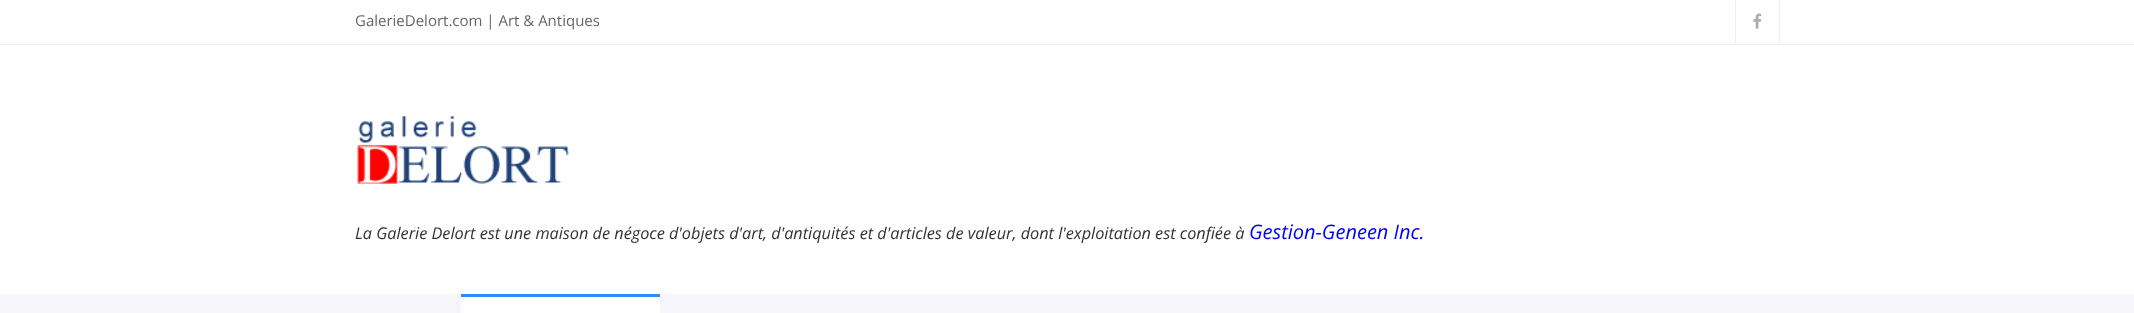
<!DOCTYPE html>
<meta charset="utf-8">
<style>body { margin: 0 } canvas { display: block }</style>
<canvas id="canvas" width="2134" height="313"></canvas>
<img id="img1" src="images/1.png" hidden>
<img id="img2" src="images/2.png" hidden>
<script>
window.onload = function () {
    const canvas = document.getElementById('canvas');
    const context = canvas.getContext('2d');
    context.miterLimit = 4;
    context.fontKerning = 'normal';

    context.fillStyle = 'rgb(255, 255, 255)';
    context.fillRect(0, 0, 2134, 313);
    context.fillStyle = 'rgb(238, 238, 238)';
    context.fillRect(0, 44, 2134, 1);
    context.fillRect(1779, 0, 1, 44);
    context.fillRect(1735, 0, 1, 44);
    context.drawImage(document.getElementById('img1'), 1753, 13, 9, 16);
    context.drawImage(document.getElementById('img2'), 357, 116, 212, 68);
    context.fillStyle = 'rgb(246, 246, 250)';
    context.fillRect(0, 294, 2134, 19);
    context.fillStyle = 'rgb(255, 255, 255)';
    context.fillRect(461, 297, 199, 16);
    context.fillStyle = 'rgb(48, 138, 249)';
    context.fillRect(461, 294, 199, 3);
    context.font = '15px Open Sans';
    context.fillStyle = 'rgb(102, 102, 102)';
    context.fillText('GalerieDelort.com | Art & Antiques', 355, 26);
    context.font = 'italic 16.25px Open Sans';
    context.fillStyle = 'rgb(50, 50, 50)';
    context.fillText('La Galerie Delort est une maison de négoce d\'objets d\'art, d\'antiquités et d\'articles de valeur, dont l\'exploitation est confiée à', 355, 239);
    context.font = 'italic 20px Open Sans';
    context.fillStyle = 'rgb(0, 0, 255)';
    context.fillText('Gestion-Geneen Inc.', 1249, 239);
};
</script>
